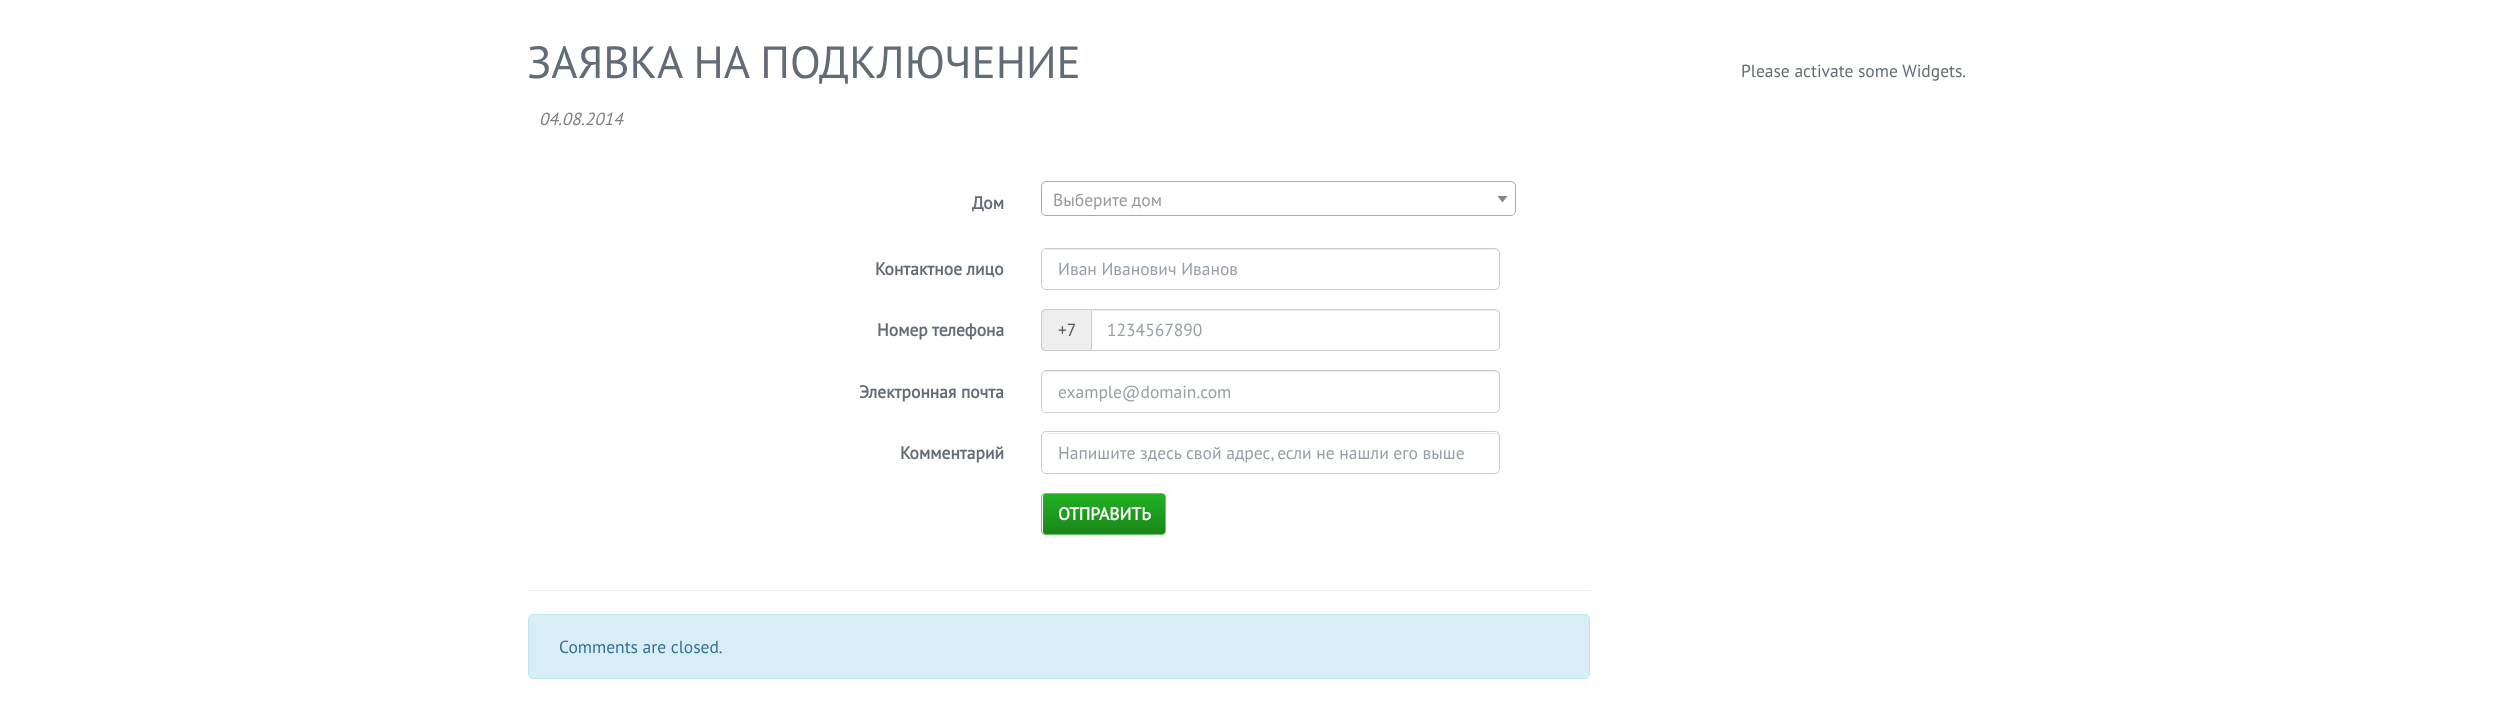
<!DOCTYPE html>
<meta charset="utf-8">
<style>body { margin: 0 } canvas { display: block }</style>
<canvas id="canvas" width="2516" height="717"></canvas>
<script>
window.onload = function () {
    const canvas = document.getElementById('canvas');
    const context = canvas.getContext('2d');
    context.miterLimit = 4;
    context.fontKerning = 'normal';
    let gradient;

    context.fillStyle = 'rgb(255, 255, 255)';
    context.fillRect(0, 0, 2516, 717);
    context.fillStyle = 'rgb(238, 238, 238)';
    context.fillRect(528, 590, 1062, 1);
    context.beginPath();
    context.roundRect(1041.5, 181.5, 474, 34, 4.5);
    context.strokeStyle = 'rgb(170, 170, 170)';
    context.stroke();
    context.fillStyle = 'rgb(136, 136, 136)';
    context.beginPath();
    context.moveTo(1497.5, 196);
    context.lineTo(1507.5, 196);
    context.lineTo(1502.5, 202.5);
    context.closePath();
    context.fill();
    context.fillStyle = 'rgb(236, 236, 236)';
    context.beginPath();
    context.moveTo(1046, 250);
    context.lineTo(1495, 250);
    context.bezierCurveTo(1497, 250, 1499, 252, 1499, 254);
    context.lineTo(1499, 253);
    context.bezierCurveTo(1499, 251, 1497, 249, 1495, 249);
    context.lineTo(1047, 249);
    context.bezierCurveTo(1046, 249, 1044, 250, 1044, 251);
    context.closePath();
    context.fill();
    context.beginPath();
    context.roundRect(1041.5, 248.5, 458, 41, 4.5);
    context.strokeStyle = 'rgb(204, 204, 204)';
    context.stroke();
    context.fillStyle = 'rgb(238, 238, 238)';
    context.beginPath();
    context.roundRect(1041, 309, 50, 42, [5, 0, 0, 5]);
    context.fill();
    context.fillStyle = 'rgb(204, 204, 204)';
    context.beginPath();
    context.moveTo(1046, 309);
    context.lineTo(1091, 309);
    context.lineTo(1091, 351);
    context.lineTo(1046, 351);
    context.bezierCurveTo(1043, 351, 1041, 349, 1041, 346);
    context.lineTo(1041, 314);
    context.bezierCurveTo(1041, 311, 1043, 309, 1046, 309);
    context.closePath();
    context.moveTo(1046, 310);
    context.lineTo(1091, 310);
    context.lineTo(1091, 350);
    context.lineTo(1046, 350);
    context.bezierCurveTo(1044, 350, 1042, 348, 1042, 346);
    context.lineTo(1042, 314);
    context.bezierCurveTo(1042, 312, 1044, 310, 1046, 310);
    context.closePath();
    context.fill('evenodd');
    context.fillStyle = 'rgb(236, 236, 236)';
    context.beginPath();
    context.moveTo(1093, 310);
    context.lineTo(1093, 311);
    context.lineTo(1495, 311);
    context.bezierCurveTo(1497, 311, 1499, 313, 1499, 315);
    context.bezierCurveTo(1499, 312, 1498, 310, 1495, 310);
    context.closePath();
    context.fill();
    context.beginPath();
    context.roundRect(1091.5, 309.5, 408, 41, [0, 4.5, 4.5, 0]);
    context.stroke();
    context.beginPath();
    context.moveTo(1046, 372);
    context.lineTo(1495, 372);
    context.bezierCurveTo(1497, 372, 1499, 374, 1499, 376);
    context.lineTo(1499, 375);
    context.bezierCurveTo(1499, 373, 1497, 371, 1495, 371);
    context.lineTo(1047, 371);
    context.bezierCurveTo(1046, 371, 1044, 372, 1044, 373);
    context.closePath();
    context.fill();
    context.beginPath();
    context.roundRect(1041.5, 370.5, 458, 42, 4.5);
    context.stroke();
    context.beginPath();
    context.moveTo(1046, 434);
    context.lineTo(1495, 434);
    context.bezierCurveTo(1497, 434, 1499, 435, 1499, 438);
    context.lineTo(1499, 437);
    context.bezierCurveTo(1499, 435, 1497, 433, 1495, 433);
    context.lineTo(1047, 433);
    context.bezierCurveTo(1046, 433, 1045, 434, 1044, 434);
    context.closePath();
    context.fill();
    context.beginPath();
    context.roundRect(1041.5, 431.5, 458, 42, 4.5);
    context.stroke();
    gradient = context.createLinearGradient(1104, 494, 1104, 534);
    gradient.addColorStop(0, 'rgb(34, 177, 34)');
    gradient.addColorStop(1, 'rgb(26, 134, 26)');
    context.fillStyle = gradient;
    context.beginPath();
    context.roundRect(1043, 494, 122, 40, 2.5);
    context.fill();
    context.beginPath();
    context.roundRect(1041.5, 493.5, 124, 41, 3.5);
    context.strokeStyle = 'rgba(34, 177, 34, 0.7)';
    context.stroke();
    context.fillStyle = 'rgb(217, 237, 247)';
    context.beginPath();
    context.roundRect(528.5, 614.5, 1061, 64, 4.5);
    context.fill();
    context.strokeStyle = 'rgb(188, 232, 241)';
    context.stroke();
    context.font = '45px PT Sans';
    context.fillStyle = 'rgb(98, 108, 119)';
    context.fillText('ЗАЯВКА НА ПОДКЛЮЧЕНИЕ', 527, 78);
    context.font = 'italic 17.5px PT Sans';
    context.fillStyle = 'rgb(128, 128, 128)';
    context.fillText('04.08.2014', 539, 125);
    context.font = 'bold 17.5px PT Sans';
    context.fillStyle = 'rgb(98, 108, 119)';
    context.fillText('Дом', 972, 209);
    context.font = '17.5px PT Sans';
    context.fillStyle = 'rgb(153, 153, 153)';
    context.fillText('Выберите дом', 1053, 206);
    context.font = 'bold 17.5px PT Sans';
    context.fillStyle = 'rgb(98, 108, 119)';
    context.fillText('Контактное лицо', 875, 275);
    context.font = '17.5px PT Sans';
    context.fillStyle = 'rgb(150, 159, 169)';
    context.fillText('Иван Иванович Иванов', 1058, 275);
    context.font = 'bold 17.5px PT Sans';
    context.fillStyle = 'rgb(98, 108, 119)';
    context.fillText('Номер телефона', 877, 336);
    context.font = '17.5px PT Sans';
    context.fillStyle = 'rgb(85, 85, 85)';
    context.fillText('+7', 1058, 336);
    context.fillStyle = 'rgb(150, 159, 169)';
    context.fillText('1234567890', 1107, 336);
    context.font = 'bold 17.5px PT Sans';
    context.fillStyle = 'rgb(98, 108, 119)';
    context.fillText('Электронная почта', 859, 398);
    context.font = '17.5px PT Sans';
    context.fillStyle = 'rgb(150, 159, 169)';
    context.fillText('example@domain.com', 1058, 398);
    context.font = 'bold 17.5px PT Sans';
    context.fillStyle = 'rgb(98, 108, 119)';
    context.fillText('Комментарий', 900, 459);
    context.font = '17.5px PT Sans';
    context.fillStyle = 'rgb(150, 159, 169)';
    context.fillText('Напишите здесь свой адрес, если не нашли его выше', 1058, 459);
    context.font = 'bold 17.5px PT Sans';
    context.fillStyle = 'rgb(255, 255, 255)';
    context.fillText('ОТПРАВИТЬ', 1058, 520);
    context.font = '17.5px PT Sans';
    context.fillStyle = 'rgb(49, 112, 143)';
    context.fillText('Comments are closed.', 559, 653);
    context.fillStyle = 'rgb(98, 108, 119)';
    context.fillText('Please activate some Widgets.', 1741, 77);
};
</script>
